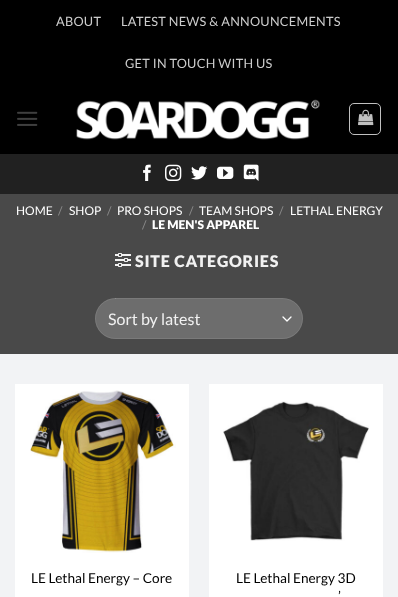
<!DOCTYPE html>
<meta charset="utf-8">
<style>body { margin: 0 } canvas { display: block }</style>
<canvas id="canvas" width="398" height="597"></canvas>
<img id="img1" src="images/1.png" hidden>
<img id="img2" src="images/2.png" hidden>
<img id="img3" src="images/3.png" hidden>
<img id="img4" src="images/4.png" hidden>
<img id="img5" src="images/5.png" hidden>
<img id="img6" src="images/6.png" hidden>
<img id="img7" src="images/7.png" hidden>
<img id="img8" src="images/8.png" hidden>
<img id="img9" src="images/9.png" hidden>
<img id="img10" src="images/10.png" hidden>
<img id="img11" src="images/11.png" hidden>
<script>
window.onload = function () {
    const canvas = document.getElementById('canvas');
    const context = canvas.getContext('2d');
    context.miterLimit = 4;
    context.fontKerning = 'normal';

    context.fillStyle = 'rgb(242, 243, 245)';
    context.fillRect(0, 0, 398, 597);
    context.fillStyle = 'rgb(0, 0, 0)';
    context.fillRect(0, 0, 398, 154);
    context.drawImage(document.getElementById('img1'), 17, 111, 21, 15);
    context.drawImage(document.getElementById('img2'), 76, 99, 244, 41);
    context.beginPath();
    context.roundRect(349.5, 103.5, 31, 31, 4.5);
    context.strokeStyle = 'rgb(192, 192, 192)';
    context.stroke();
    context.drawImage(document.getElementById('img3'), 358, 109, 16, 17);
    context.fillStyle = 'rgb(33, 33, 33)';
    context.fillRect(0, 154, 398, 40);
    context.drawImage(document.getElementById('img4'), 143, 164, 8, 17);
    context.drawImage(document.getElementById('img5'), 165, 164, 17, 17);
    context.drawImage(document.getElementById('img6'), 191, 166, 17, 14);
    context.drawImage(document.getElementById('img7'), 217, 166, 17, 13);
    context.drawImage(document.getElementById('img8'), 243, 164, 16, 17);
    context.fillStyle = 'rgb(73, 73, 73)';
    context.fillRect(0, 194, 398, 160);
    context.drawImage(document.getElementById('img9'), 115, 253, 16, 14);
    context.fillStyle = 'rgb(109, 109, 109)';
    context.beginPath();
    context.roundRect(95, 298, 208, 41, 20.5);
    context.fill();
    context.beginPath();
    context.moveTo(283, 317);
    context.lineTo(287, 321);
    context.lineTo(291, 317);
    context.strokeStyle = 'rgb(255, 255, 255)';
    context.lineWidth = 1.3;
    context.lineCap = 'round';
    context.lineJoin = 'round';
    context.stroke();
    context.beginPath();
    context.roundRect(95.5, 298.5, 207, 40, 20);
    context.strokeStyle = 'rgba(255, 255, 255, 0.09)';
    context.lineWidth = 1;
    context.lineJoin = 'miter';
    context.stroke();
    context.fillStyle = 'rgb(255, 255, 255)';
    context.fillRect(15, 384, 174, 213);
    context.drawImage(document.getElementById('img10'), 30, 390, 146, 163);
    context.fillRect(209, 384, 174, 213);
    context.drawImage(document.getElementById('img11'), 223, 401, 146, 140);
    context.letterSpacing = '0.25px';
    context.font = '12.75px Lato';
    context.fillStyle = 'rgb(204, 204, 204)';
    context.fillText('ABOUT', 56, 26);
    context.fillText('LATEST NEWS & ANNOUNCEMENTS', 121, 26);
    context.fillText('GET IN TOUCH WITH US', 125, 68);
    context.letterSpacing = '0px';
    context.font = '12px Lato';
    context.fillStyle = 'rgb(255, 255, 255)';
    context.fillText('HOME', 16, 215);
    context.fillStyle = 'rgb(137, 137, 137)';
    context.fillText('/', 58, 215);
    context.fillStyle = 'rgb(255, 255, 255)';
    context.fillText('SHOP', 69, 215);
    context.fillStyle = 'rgb(137, 137, 137)';
    context.fillText('/', 107, 215);
    context.fillStyle = 'rgb(255, 255, 255)';
    context.fillText('PRO SHOPS', 117, 215);
    context.fillStyle = 'rgb(137, 137, 137)';
    context.fillText('/', 189, 215);
    context.fillStyle = 'rgb(255, 255, 255)';
    context.fillText('TEAM SHOPS', 199, 215);
    context.fillStyle = 'rgb(137, 137, 137)';
    context.fillText('/', 279, 215);
    context.fillStyle = 'rgb(255, 255, 255)';
    context.fillText('LETHAL ENERGY', 290, 215);
    context.fillStyle = 'rgb(137, 137, 137)';
    context.fillText('/', 142, 229);
    context.font = '900 12px Lato';
    context.fillStyle = 'rgb(255, 255, 255)';
    context.fillText('LE MEN\'S APPAREL', 152, 229);
    context.letterSpacing = '0.75px';
    context.font = '900 16px Lato';
    context.fillStyle = 'rgb(241, 241, 241)';
    context.fillText('SITE CATEGORIES', 135, 267);
    context.letterSpacing = '0px';
    context.font = '16px Lato';
    context.fillText('Sort by latest', 108, 325);
    context.font = '13.6px Lato';
    context.fillStyle = 'rgb(0, 0, 0)';
    context.fillText('LE Lethal Energy – Core', 31, 583);
    context.fillText('LE Lethal Energy 3D', 236, 583);
    context.fillText('’', 338, 601);
};
</script>
